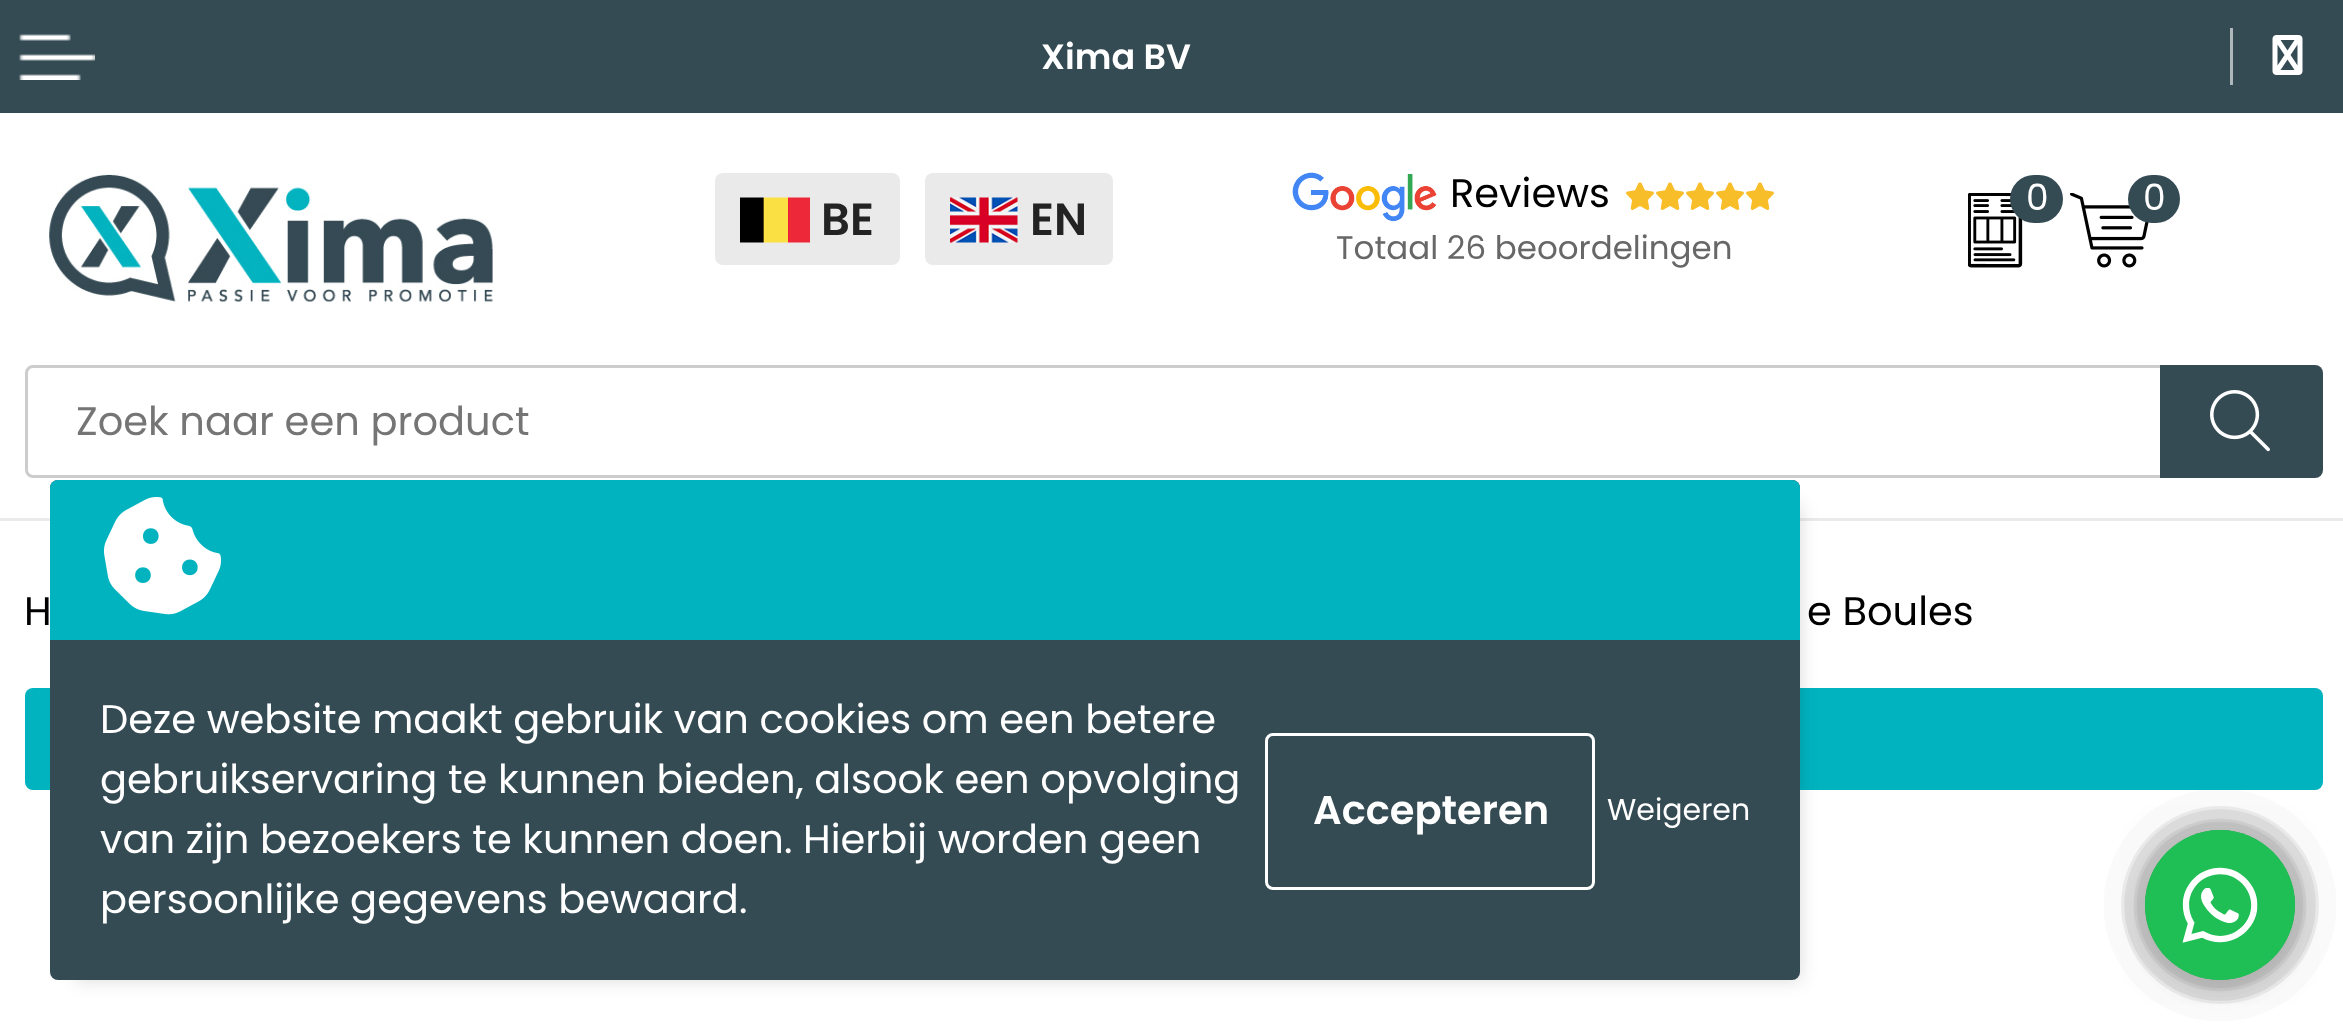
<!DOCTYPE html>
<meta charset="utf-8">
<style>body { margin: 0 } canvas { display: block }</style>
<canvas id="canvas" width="2343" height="1028"></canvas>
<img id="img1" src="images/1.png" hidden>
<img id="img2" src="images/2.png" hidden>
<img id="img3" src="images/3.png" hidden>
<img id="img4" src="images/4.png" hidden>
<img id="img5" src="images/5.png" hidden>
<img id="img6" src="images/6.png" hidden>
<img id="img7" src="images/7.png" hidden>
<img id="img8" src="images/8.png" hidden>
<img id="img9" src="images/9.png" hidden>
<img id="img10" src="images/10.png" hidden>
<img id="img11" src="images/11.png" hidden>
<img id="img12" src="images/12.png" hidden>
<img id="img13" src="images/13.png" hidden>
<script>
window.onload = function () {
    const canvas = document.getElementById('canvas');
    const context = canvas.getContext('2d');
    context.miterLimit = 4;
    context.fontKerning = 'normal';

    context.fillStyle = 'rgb(255, 255, 255)';
    context.fillRect(0, 0, 2343, 1028);
    context.fillStyle = 'rgb(53, 75, 84)';
    context.fillRect(0, 0, 2343, 113);
    context.drawImage(document.getElementById('img1'), 19, 34, 76, 46);
    context.fillStyle = 'rgb(174, 183, 187)';
    context.fillRect(2230, 28, 3, 57);
    context.drawImage(document.getElementById('img2'), 2272, 35, 31, 40);
    context.drawImage(document.getElementById('img3'), 49, 174, 444, 128);
    context.drawImage(document.getElementById('img4'), 1292, 172, 145, 50);
    context.drawImage(document.getElementById('img5'), 1626, 182, 148, 28);
    context.drawImage(document.getElementById('img6'), 1968, 193, 55, 75);
    context.fillStyle = 'rgb(53, 75, 84)';
    context.beginPath();
    context.roundRect(2010, 175, 53, 48, 24);
    context.fill();
    context.drawImage(document.getElementById('img7'), 2070, 193, 79, 75);
    context.beginPath();
    context.roundRect(2128, 175, 52, 48, 24);
    context.fill();
    context.fillStyle = 'rgb(234, 234, 234)';
    context.beginPath();
    context.roundRect(715, 173, 185, 92, 8);
    context.fill();
    context.drawImage(document.getElementById('img8'), 740, 197, 70, 46);
    context.beginPath();
    context.roundRect(925, 173, 188, 92, 8);
    context.fill();
    context.drawImage(document.getElementById('img9'), 950, 197, 68, 46);
    context.beginPath();
    context.roundRect(26.5, 366.5, 2135, 110, [6.5, 0, 0, 6.5]);
    context.strokeStyle = 'rgb(204, 204, 204)';
    context.lineWidth = 3;
    context.stroke();
    context.fillStyle = 'rgb(53, 75, 84)';
    context.beginPath();
    context.roundRect(2160, 365, 163, 113, [0, 8, 8, 0]);
    context.fill();
    context.drawImage(document.getElementById('img10'), 2210, 390, 60, 62);
    context.fillStyle = 'rgb(234, 234, 234)';
    context.fillRect(0, 518, 2343, 3);
    context.fillStyle = 'rgb(0, 179, 191)';
    context.beginPath();
    context.roundRect(25, 688, 2298, 102, 8);
    context.fill();
    context.fillStyle = 'rgba(0, 0, 0, 0.15)';
    context.filter = 'blur(9px)';
    context.beginPath();
    context.rect(75, 505, 1725, 475);
    context.fill();
    context.filter = 'none';
    context.fillStyle = 'rgb(53, 75, 84)';
    context.beginPath();
    context.roundRect(50, 480, 1750, 500, 8);
    context.fill();
    context.fillStyle = 'rgb(0, 179, 191)';
    context.beginPath();
    context.roundRect(50, 480, 1750, 160, [8, 8, 0, 0]);
    context.fill();
    context.drawImage(document.getElementById('img11'), 104, 497, 117, 118);
    context.beginPath();
    context.roundRect(1266.5, 734.5, 327, 154, 6.5);
    context.strokeStyle = 'rgb(255, 255, 255)';
    context.stroke();
    context.drawImage(document.getElementById('img12'), 2104, 790, 232, 231);
    context.drawImage(document.getElementById('img13'), 2121, 806, 198, 198);
    context.font = '600 35px Poppins';
    context.fillStyle = 'rgb(255, 255, 255)';
    context.fillText('Xima BV', 1041, 69);
    context.font = '40px Poppins';
    context.fillStyle = 'rgb(0, 0, 0)';
    context.fillText('Reviews', 1450, 207);
    context.font = '32.5px Poppins';
    context.fillStyle = 'rgb(103, 103, 103)';
    context.fillText('Totaal 26 beoordelingen', 1336, 259);
    context.font = '36px Poppins';
    context.fillStyle = 'rgb(255, 255, 255)';
    context.fillText('0', 2026, 210);
    context.fillText('0', 2143, 210);
    context.font = '600 45px Poppins';
    context.fillStyle = 'rgb(35, 35, 35)';
    context.fillText('BE', 821, 235);
    context.fillText('EN', 1030, 235);
    context.font = '40px Poppins';
    context.fillStyle = 'rgb(117, 117, 117)';
    context.fillText('Zoek naar een product', 76, 435);
    context.fillStyle = 'rgb(0, 0, 0)';
    context.fillText('H', 24, 625);
    context.fillText('e Boules', 1807, 625);
    context.fillStyle = 'rgb(255, 255, 255)';
    context.fillText('Deze website maakt gebruik van cookies om een betere', 100, 733);
    context.fillText('gebruikservaring te kunnen bieden, alsook een opvolging', 100, 793);
    context.font = '600 40px Poppins';
    context.fillText('Accepteren', 1313, 824);
    context.font = '30px Poppins';
    context.fillText('Weigeren', 1607, 820);
    context.font = '40px Poppins';
    context.fillText('van zijn bezoekers te kunnen doen. Hierbij worden geen', 100, 853);
    context.fillText('persoonlijke gegevens bewaard.', 100, 913);
};
</script>
